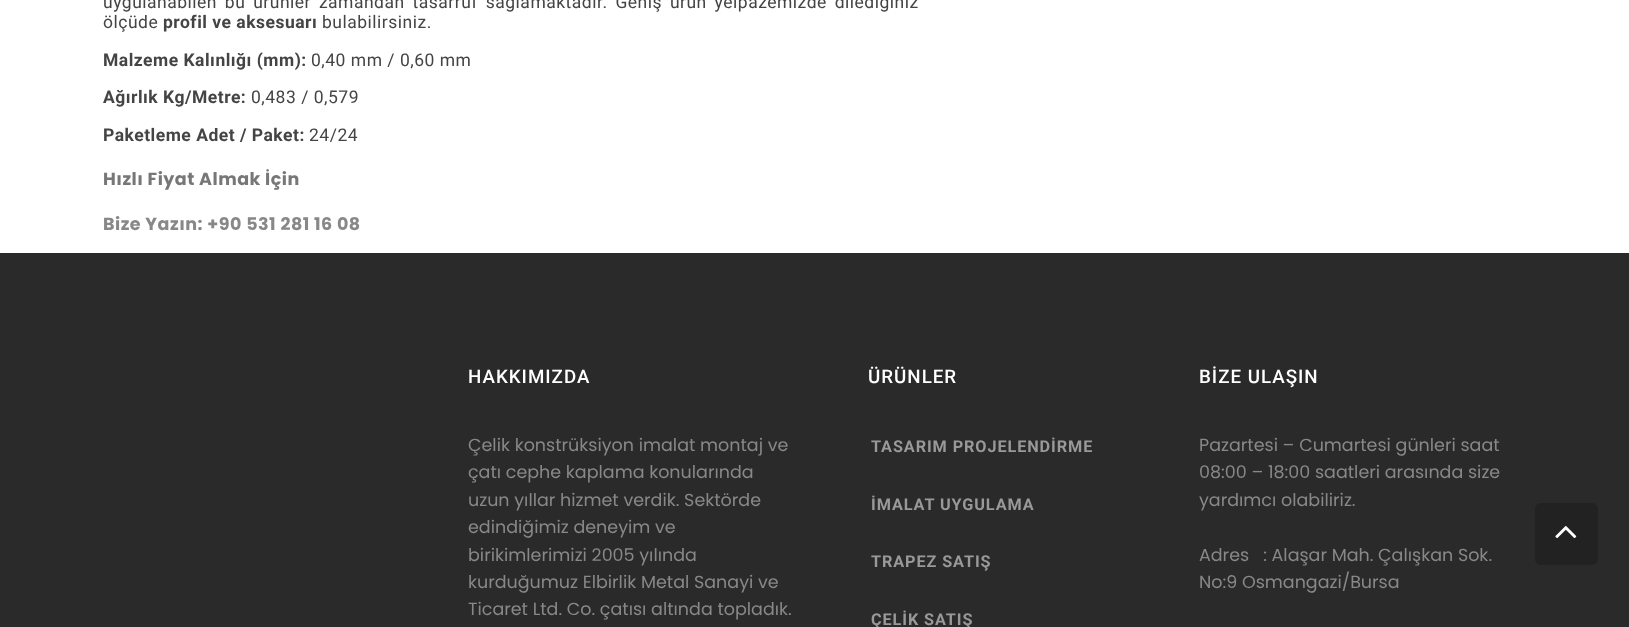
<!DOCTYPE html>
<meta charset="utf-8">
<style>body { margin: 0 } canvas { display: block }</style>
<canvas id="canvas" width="1629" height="627"></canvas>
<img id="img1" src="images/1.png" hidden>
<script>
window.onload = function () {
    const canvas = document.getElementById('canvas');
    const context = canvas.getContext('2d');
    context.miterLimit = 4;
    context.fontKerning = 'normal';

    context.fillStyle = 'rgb(255, 255, 255)';
    context.fillRect(0, 0, 1629, 627);
    context.fillStyle = 'rgb(42, 42, 42)';
    context.fillRect(0, 253, 1629, 374);
    context.fillStyle = 'rgb(34, 34, 34)';
    context.beginPath();
    context.roundRect(1535, 503, 63, 62, 6);
    context.fill();
    context.drawImage(document.getElementById('img1'), 1555, 526, 22, 13);
    context.letterSpacing = '0.5px';
    context.wordSpacing = '3px';
    context.font = '17.5px Roboto';
    context.fillStyle = 'rgb(68, 68, 68)';
    context.fillText('uygulanabilen bu ürünler zamandan tasarruf sağlamaktadır. Geniş ürün yelpazemizde dilediğiniz', 103, 8);
    context.wordSpacing = '0px';
    context.fillText('ölçüde', 103, 28);
    context.font = 'bold 17.5px Roboto';
    context.fillText('profil ve aksesuarı', 163, 28);
    context.font = '17.5px Roboto';
    context.fillText('bulabilirsiniz.', 322, 28);
    context.font = 'bold 17.5px Roboto';
    context.fillText('Malzeme Kalınlığı (mm):', 103, 66);
    context.font = '17.5px Roboto';
    context.fillText('0,40 mm / 0,60 mm', 311, 66);
    context.font = 'bold 17.5px Roboto';
    context.fillText('Ağırlık Kg/Metre:', 103, 103);
    context.font = '17.5px Roboto';
    context.fillText('0,483 / 0,579', 251, 103);
    context.font = 'bold 17.5px Roboto';
    context.fillText('Paketleme Adet / Paket:', 103, 141);
    context.font = '17.5px Roboto';
    context.fillText('24/24', 309, 141);
    context.font = 'bold 17.5px Poppins';
    context.fillStyle = 'rgb(119, 119, 119)';
    context.fillText('Hızlı Fiyat Almak İçin', 103, 185);
    context.fillStyle = 'rgb(136, 136, 136)';
    context.fillText('Bize Yazın: +90 531 281 16 08', 103, 230);
    context.letterSpacing = '1px';
    context.font = '500 18.75px Roboto';
    context.fillStyle = 'rgb(255, 255, 255)';
    context.fillText('HAKKIMIZDA', 468, 383);
    context.letterSpacing = '0px';
    context.font = '17.5px Poppins';
    context.fillStyle = 'rgb(136, 136, 136)';
    context.fillText('Çelik konstrüksiyon imalat montaj ve', 468, 451);
    context.fillText('çatı cephe kaplama konularında', 468, 478);
    context.fillText('uzun yıllar hizmet verdik. Sektörde', 468, 506);
    context.fillText('edindiğimiz deneyim ve', 468, 533);
    context.fillText('birikimlerimizi 2005 yılında', 468, 561);
    context.fillText('kurduğumuz Elbirlik Metal Sanayi ve', 468, 588);
    context.fillText('Ticaret Ltd. Co. çatısı altında topladık.', 468, 615);
    context.letterSpacing = '1px';
    context.font = '500 18.75px Roboto';
    context.fillStyle = 'rgb(255, 255, 255)';
    context.fillText('ÜRÜNLER', 868, 383);
    context.letterSpacing = '0.9px';
    context.font = 'bold 16.25px Roboto';
    context.fillStyle = 'rgb(153, 153, 153)';
    context.fillText('TASARIM PROJELENDİRME', 871, 452);
    context.fillText('İMALAT UYGULAMA', 871, 510);
    context.fillText('TRAPEZ SATIŞ', 871, 567);
    context.fillText('ÇELİK SATIŞ', 871, 625);
    context.letterSpacing = '1px';
    context.font = '500 18.75px Roboto';
    context.fillStyle = 'rgb(255, 255, 255)';
    context.fillText('BİZE ULAŞIN', 1199, 383);
    context.letterSpacing = '0px';
    context.font = '17.5px Poppins';
    context.fillStyle = 'rgb(136, 136, 136)';
    context.fillText('Pazartesi – Cumartesi günleri saat', 1199, 451);
    context.fillText('08:00 – 18:00 saatleri arasında size', 1199, 478);
    context.fillText('yardımcı olabiliriz.', 1199, 506);
    context.fillText('Adres   : Alaşar Mah. Çalışkan Sok.', 1199, 561);
    context.fillText('No:9 Osmangazi/Bursa', 1199, 588);
};
</script>
